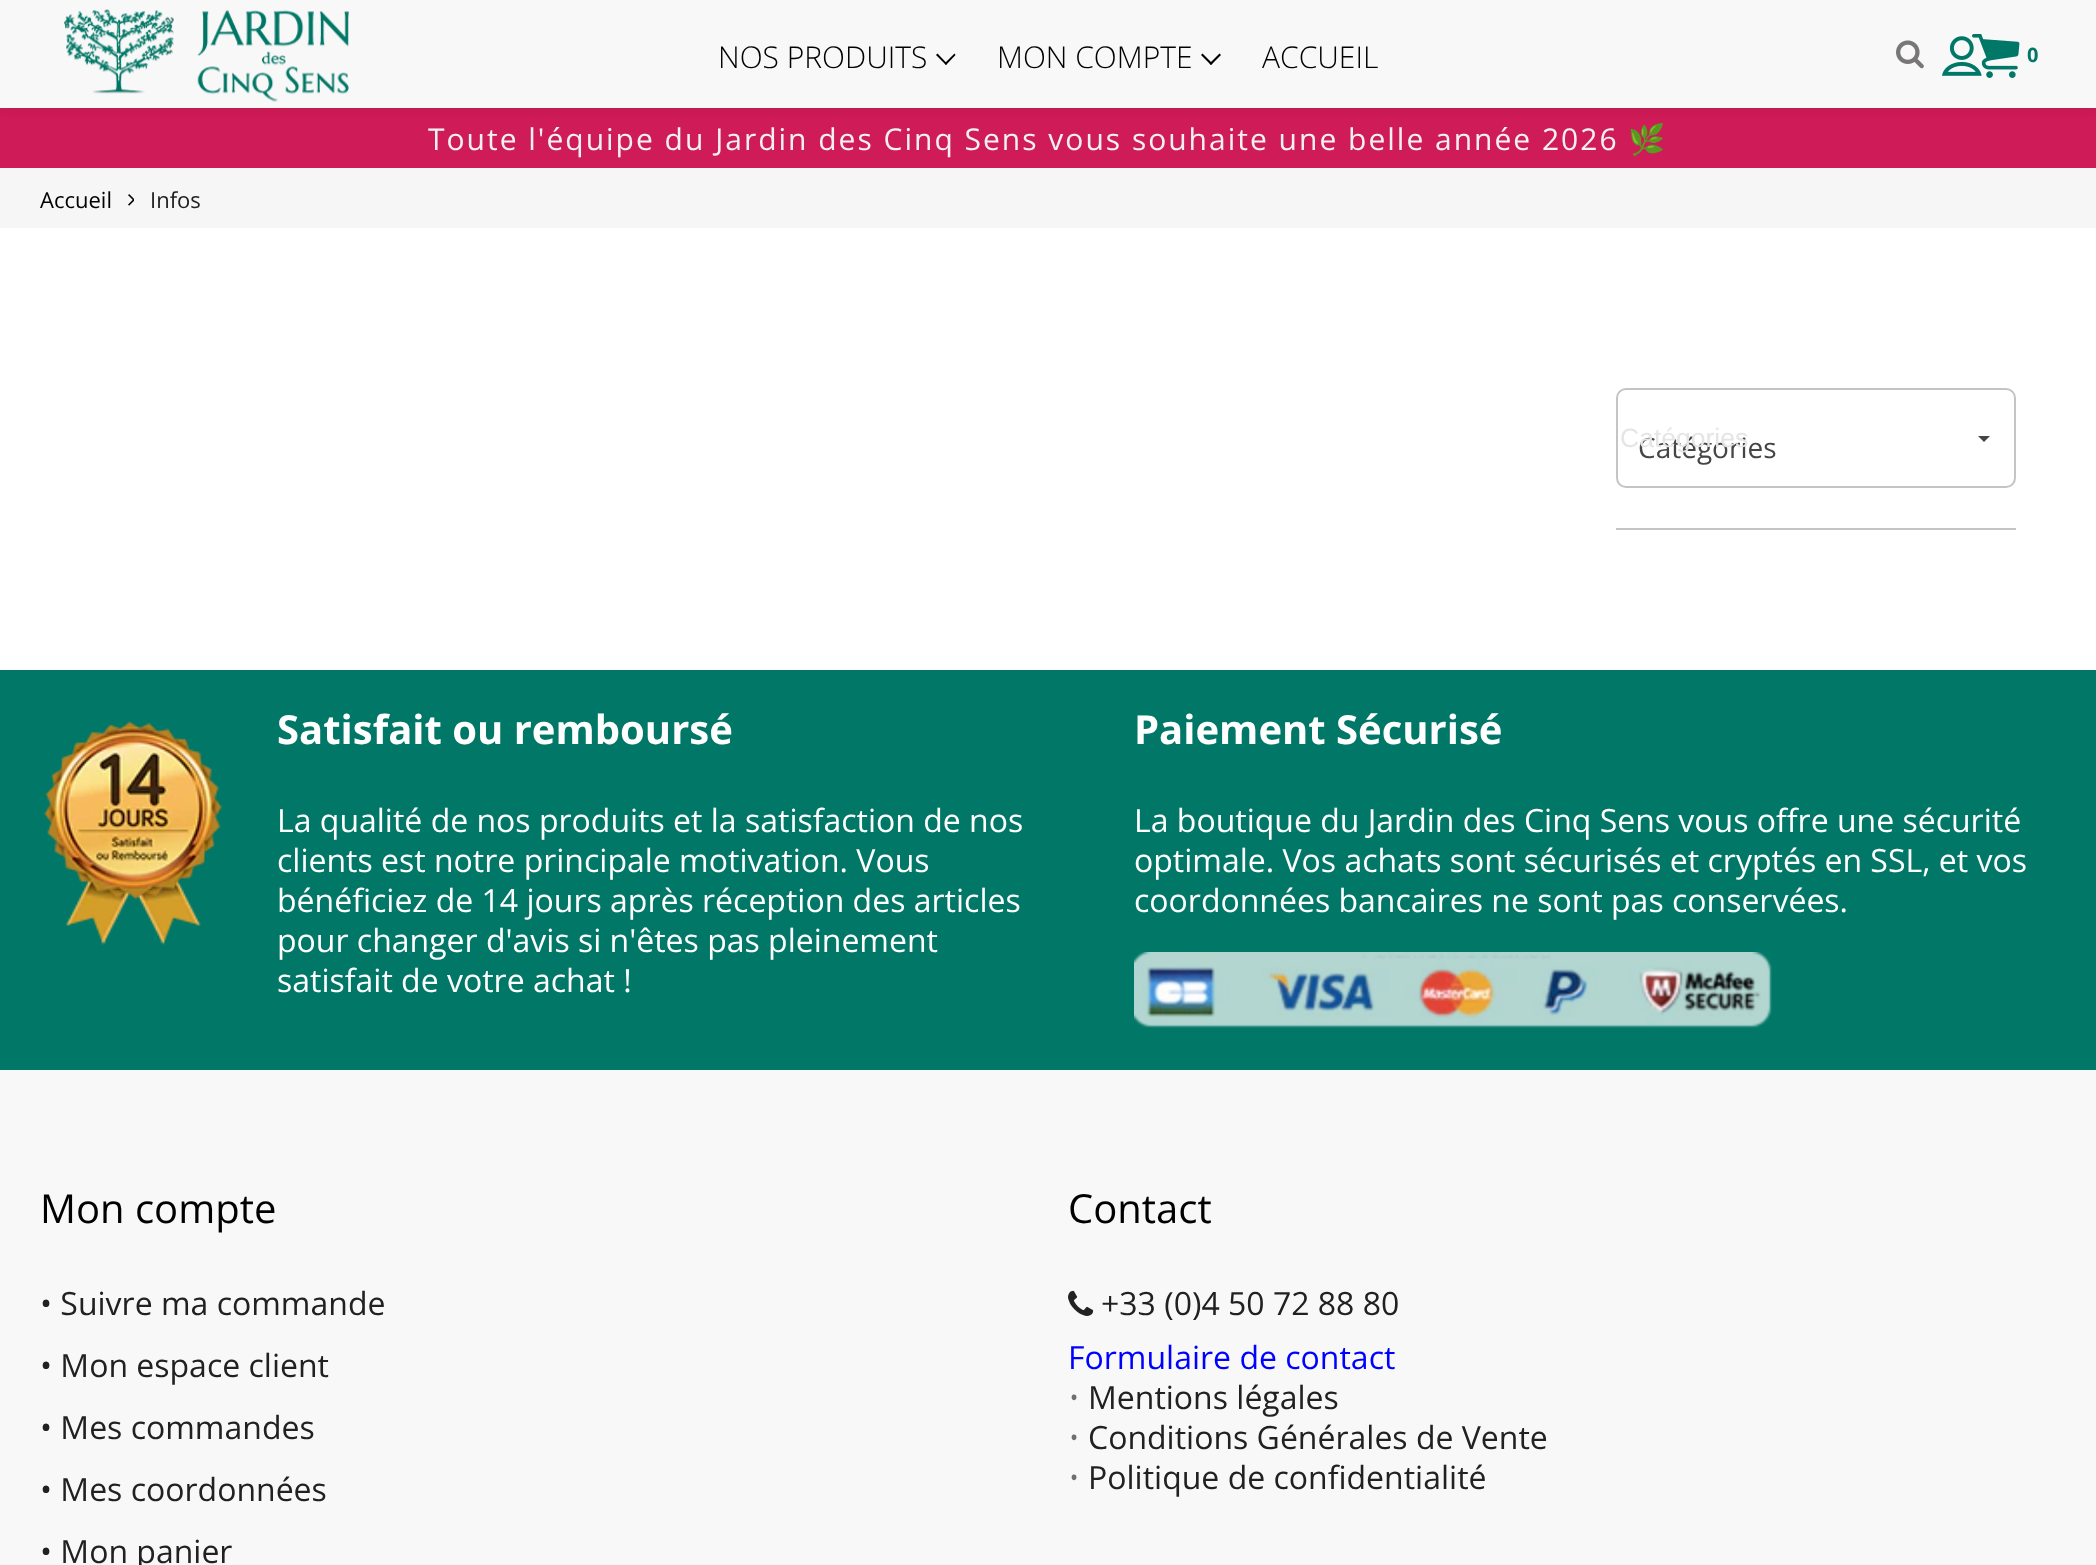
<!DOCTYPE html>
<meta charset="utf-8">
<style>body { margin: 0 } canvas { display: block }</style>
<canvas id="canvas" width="2096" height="1565"></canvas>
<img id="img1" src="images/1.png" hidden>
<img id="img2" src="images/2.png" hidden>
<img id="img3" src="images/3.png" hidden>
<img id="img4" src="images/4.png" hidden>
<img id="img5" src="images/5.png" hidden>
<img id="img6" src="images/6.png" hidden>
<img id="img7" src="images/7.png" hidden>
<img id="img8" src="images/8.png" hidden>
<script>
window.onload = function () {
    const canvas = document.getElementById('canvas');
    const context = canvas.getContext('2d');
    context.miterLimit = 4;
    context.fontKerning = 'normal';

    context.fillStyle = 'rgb(255, 255, 255)';
    context.fillRect(0, 0, 2096, 1565);
    context.fillStyle = 'rgb(207, 27, 87)';
    context.fillRect(0, 108, 2096, 60);
    context.fillStyle = 'rgba(0, 0, 0, 0.1)';
    context.filter = 'blur(6px)';
    context.beginPath();
    context.rect(0, 0, 2096, 108);
    context.fill();
    context.filter = 'none';
    context.fillStyle = 'rgb(248, 248, 248)';
    context.fillRect(0, 0, 2096, 108);
    context.fillStyle = 'rgb(0, 0, 0)';
    context.beginPath();
    context.moveTo(954.5, 53.5);
    context.lineTo(955.5, 55);
    context.lineTo(946, 65);
    context.lineTo(944.5, 63.5);
    context.closePath();
    context.fill();
    context.beginPath();
    context.moveTo(937.5, 53.5);
    context.lineTo(947, 63.5);
    context.lineTo(946, 65);
    context.lineTo(936, 55);
    context.closePath();
    context.fill();
    context.beginPath();
    context.moveTo(1219.5, 53.5);
    context.lineTo(1221, 55);
    context.lineTo(1211, 65);
    context.lineTo(1209.5, 63.5);
    context.closePath();
    context.fill();
    context.beginPath();
    context.moveTo(1202.5, 53.5);
    context.lineTo(1212.5, 63.5);
    context.lineTo(1211, 65);
    context.lineTo(1201, 55);
    context.closePath();
    context.fill();
    context.drawImage(document.getElementById('img1'), 64, 9, 285, 93);
    context.drawImage(document.getElementById('img2'), 1896, 40, 28, 29);
    context.drawImage(document.getElementById('img3'), 1942, 36, 40, 40);
    context.drawImage(document.getElementById('img4'), 1972, 34, 48, 44);
    context.fillStyle = 'rgb(246, 246, 246)';
    context.fillRect(0, 168, 2096, 60);
    context.drawImage(document.getElementById('img5'), 128, 194, 6, 12);
    context.fillStyle = 'rgb(196, 196, 196)';
    context.fillRect(1616, 528, 400, 2);
    context.beginPath();
    context.roundRect(1617, 389, 398, 98, 9);
    context.strokeStyle = 'rgb(196, 196, 196)';
    context.lineWidth = 2;
    context.stroke();
    context.fillStyle = 'rgb(69, 69, 69)';
    context.beginPath();
    context.moveTo(1978, 436);
    context.lineTo(1990, 436);
    context.lineTo(1984, 442);
    context.closePath();
    context.fill();
    context.fillStyle = 'rgb(0, 119, 103)';
    context.fillRect(0, 670, 2096, 400);
    context.drawImage(document.getElementById('img6'), 44, 721, 179, 224);
    context.drawImage(document.getElementById('img7'), 1134, 952, 638, 76);
    context.fillStyle = 'rgb(248, 248, 248)';
    context.fillRect(0, 1070, 2096, 495);
    context.drawImage(document.getElementById('img8'), 1068, 1290, 26, 26);
    context.font = '300 30px Open Sans';
    context.fillStyle = 'rgb(0, 0, 0)';
    context.fillText('NOS PRODUITS', 718, 68);
    context.fillText('MON COMPTE', 997, 68);
    context.fillText('ACCUEIL', 1262, 68);
    context.font = 'bold 20px Open Sans';
    context.fillStyle = 'rgb(0, 119, 103)';
    context.fillText('0', 2027, 62);
    context.letterSpacing = '2px';
    context.font = '30px Open Sans';
    context.fillStyle = 'rgb(241, 241, 241)';
    context.fillText('Toute l\'équipe du Jardin des Cinq Sens vous souhaite une belle année 2026', 428, 150);
    context.font = '30px Noto Color Emoji';
    context.fillText('🌿', 1628, 150);
    context.letterSpacing = '0px';
    context.font = '22px Open Sans';
    context.fillStyle = 'rgb(0, 0, 0)';
    context.fillText('Accueil', 40, 208);
    context.fillStyle = 'rgb(33, 33, 33)';
    context.fillText('Infos', 150, 208);
    context.font = '28px Open Sans';
    context.fillStyle = 'rgb(69, 69, 69)';
    context.fillText('Catégories', 1638, 458);
    context.font = '26.5px Liberation Sans';
    context.fillStyle = 'rgb(229, 229, 229)';
    context.fillText('Catégories', 1620, 447);
    context.font = 'bold 40px Open Sans';
    context.fillStyle = 'rgb(255, 255, 255)';
    context.fillText('Satisfait ou remboursé', 277, 744);
    context.font = '32px Open Sans';
    context.fillText('La qualité de nos produits et la satisfaction de nos', 277, 832);
    context.fillText('clients est notre principale motivation. Vous', 277, 872);
    context.fillText('bénéficiez de 14 jours après réception des articles', 277, 912);
    context.fillText('pour changer d\'avis si n\'êtes pas pleinement', 277, 952);
    context.fillText('satisfait de votre achat !', 277, 992);
    context.font = 'bold 40px Open Sans';
    context.fillText('Paiement Sécurisé', 1134, 744);
    context.font = '32px Open Sans';
    context.fillText('La boutique du Jardin des Cinq Sens vous offre une sécurité', 1134, 832);
    context.fillText('optimale. Vos achats sont sécurisés et cryptés en SSL, et vos', 1134, 872);
    context.fillText('coordonnées bancaires ne sont pas conservées.', 1134, 912);
    context.font = '40px Open Sans';
    context.fillStyle = 'rgb(0, 0, 0)';
    context.fillText('Mon compte', 40, 1223);
    context.font = '32px Open Sans';
    context.fillStyle = 'rgb(33, 33, 33)';
    context.fillText('• Suivre ma commande', 40, 1315);
    context.fillText('• Mon espace client', 40, 1377);
    context.fillText('• Mes commandes', 40, 1439);
    context.fillText('• Mes coordonnées', 40, 1501);
    context.fillText('• Mon panier', 40, 1563);
    context.font = '40px Open Sans';
    context.fillStyle = 'rgb(0, 0, 0)';
    context.fillText('Contact', 1068, 1223);
    context.font = '32px Open Sans';
    context.fillStyle = 'rgb(33, 33, 33)';
    context.fillText('+33 (0)4 50 72 88 80', 1101, 1315);
    context.fillStyle = 'rgb(0, 0, 255)';
    context.fillText('Formulaire de contact', 1068, 1369);
    context.font = '300 32px Open Sans';
    context.fillStyle = 'rgb(111, 111, 111)';
    context.fillText('•', 1068, 1409);
    context.font = '32px Open Sans';
    context.fillStyle = 'rgb(33, 33, 33)';
    context.fillText('Mentions légales', 1088, 1409);
    context.font = '300 32px Open Sans';
    context.fillStyle = 'rgb(111, 111, 111)';
    context.fillText('•', 1068, 1449);
    context.font = '32px Open Sans';
    context.fillStyle = 'rgb(33, 33, 33)';
    context.fillText('Conditions Générales de Vente', 1088, 1449);
    context.font = '300 32px Open Sans';
    context.fillStyle = 'rgb(111, 111, 111)';
    context.fillText('•', 1068, 1489);
    context.font = '32px Open Sans';
    context.fillStyle = 'rgb(33, 33, 33)';
    context.fillText('Politique de confidentialité', 1088, 1489);
};
</script>
